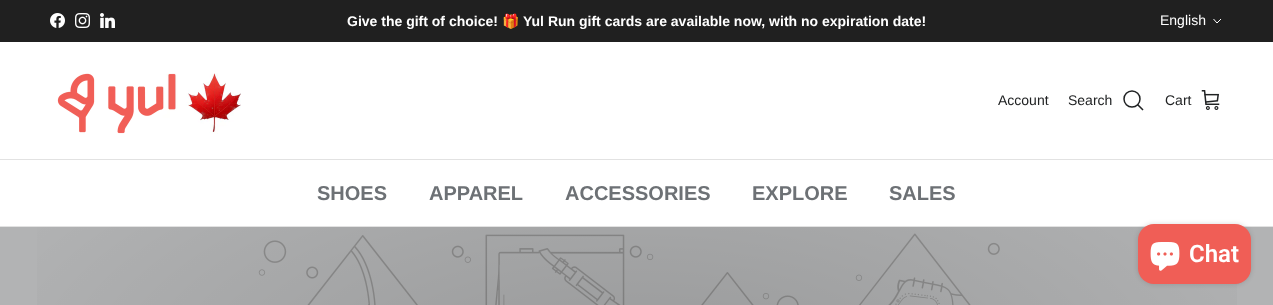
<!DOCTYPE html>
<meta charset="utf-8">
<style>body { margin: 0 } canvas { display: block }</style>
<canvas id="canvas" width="1273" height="305"></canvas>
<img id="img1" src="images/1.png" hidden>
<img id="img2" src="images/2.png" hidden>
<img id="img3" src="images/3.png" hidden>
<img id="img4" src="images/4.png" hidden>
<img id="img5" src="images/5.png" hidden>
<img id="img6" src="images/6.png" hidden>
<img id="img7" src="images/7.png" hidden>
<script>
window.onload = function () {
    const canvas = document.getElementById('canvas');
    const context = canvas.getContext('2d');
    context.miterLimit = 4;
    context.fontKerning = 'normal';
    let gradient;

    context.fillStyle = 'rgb(255, 255, 255)';
    context.fillRect(0, 0, 1273, 305);
    context.fillStyle = 'rgb(32, 32, 32)';
    context.fillRect(0, 0, 1273, 42);
    context.drawImage(document.getElementById('img1'), 50, 13, 15, 15);
    context.drawImage(document.getElementById('img2'), 75, 13, 15, 15);
    context.drawImage(document.getElementById('img3'), 100, 13, 15, 15);
    context.beginPath();
    context.moveTo(1221, 19);
    context.lineTo(1217, 23);
    context.lineTo(1213.5, 19);
    context.strokeStyle = 'rgb(255, 255, 255)';
    context.stroke();
    context.fillStyle = 'rgb(226, 226, 226)';
    context.fillRect(0, 159, 1273, 1);
    context.drawImage(document.getElementById('img4'), 57, 73, 184, 61);
    context.beginPath();
    context.arc(1132, 99, 8, 0, 2 * Math.PI);
    context.strokeStyle = 'rgb(32, 34, 35)';
    context.lineWidth = 1.5;
    context.stroke();
    context.beginPath();
    context.moveTo(1138, 105);
    context.lineTo(1142.5, 109.5);
    context.lineCap = 'square';
    context.stroke();
    context.drawImage(document.getElementById('img5'), 1201, 90, 19, 20);
    context.fillRect(0, 226, 1273, 1);
    context.fillStyle = 'rgb(178, 179, 180)';
    context.fillRect(0, 227, 1273, 78);
    context.drawImage(document.getElementById('img6'), 258, 233, 742, 72);
    gradient = context.createRadialGradient(637, 878.82, 0, 637, 878.82, 1042);
    gradient.addColorStop(0, 'rgba(0, 0, 0, 0.15)');
    gradient.addColorStop(0.7, 'rgba(0, 0, 0, 0)');
    context.fillStyle = gradient;
    context.beginPath();
    context.rect(37, 227, 1200, 78);
    context.save();
    context.clip();
    context.scale(1, 447 / 1042);
    context.fillRect(0, 0, 1273, 711);
    context.restore();
    context.fillStyle = 'rgba(0, 0, 0, 0.15)';
    context.filter = 'blur(2.5px)';
    context.beginPath();
    context.roundRect(1138, 224, 113, 60, 16);
    context.fill();
    context.filter = 'none';
    context.fillStyle = 'rgb(240, 94, 86)';
    context.beginPath();
    context.roundRect(1138, 224, 113, 60, 16);
    context.fill();
    context.drawImage(document.getElementById('img7'), 1150, 242, 30, 29);
    context.font = 'bold 14px Liberation Sans';
    context.fillStyle = 'rgb(255, 255, 255)';
    context.fillText('Give the gift of choice!', 347, 26);
    context.font = 'bold 14px Noto Color Emoji';
    context.fillText('🎁', 502, 26);
    context.font = 'bold 14px Liberation Sans';
    context.fillText('Yul Run gift cards are available now, with no expiration date!', 523, 26);
    context.font = '14px Liberation Sans';
    context.fillText('English', 1160, 25);
    context.fillStyle = 'rgb(32, 34, 35)';
    context.fillText('Account', 998, 105);
    context.fillText('Search', 1068, 105);
    context.fillText('Cart', 1165, 105);
    context.font = 'bold 20px Liberation Sans';
    context.fillStyle = 'rgb(109, 113, 117)';
    context.fillText('SHOES', 317, 200);
    context.fillText('APPAREL', 429, 200);
    context.fillText('ACCESSORIES', 565, 200);
    context.fillText('EXPLORE', 752, 200);
    context.fillText('SALES', 889, 200);
    context.font = '600 24px Roboto';
    context.fillStyle = 'rgb(255, 255, 255)';
    context.fillText('Chat', 1189, 262);
};
</script>
